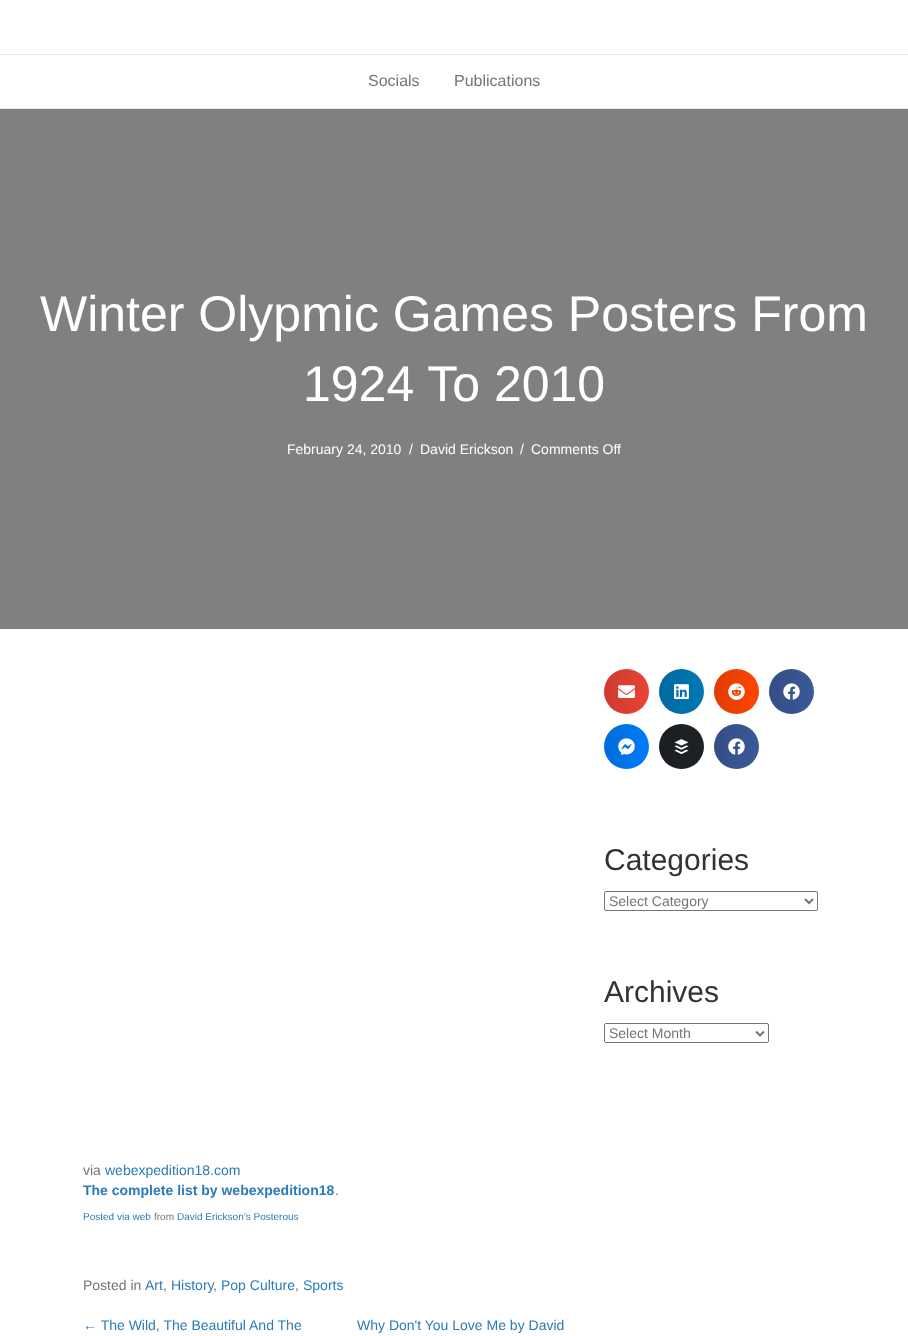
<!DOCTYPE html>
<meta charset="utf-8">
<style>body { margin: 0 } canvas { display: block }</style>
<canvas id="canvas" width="908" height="1336"></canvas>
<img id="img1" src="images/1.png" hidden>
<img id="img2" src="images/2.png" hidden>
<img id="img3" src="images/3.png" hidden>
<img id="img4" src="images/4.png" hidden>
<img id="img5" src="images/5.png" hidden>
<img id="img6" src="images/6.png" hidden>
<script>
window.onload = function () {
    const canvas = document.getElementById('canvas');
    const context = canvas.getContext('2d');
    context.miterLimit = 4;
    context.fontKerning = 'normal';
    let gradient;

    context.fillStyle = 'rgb(255, 255, 255)';
    context.fillRect(0, 0, 908, 1336);
    context.fillStyle = 'rgb(230, 230, 230)';
    context.fillRect(0, 54, 908, 1);
    context.fillRect(0, 108, 908, 1);
    context.fillStyle = 'rgb(128, 128, 128)';
    context.fillRect(0, 109, 908, 520);
    context.fillStyle = 'rgb(234, 67, 53)';
    context.beginPath();
    context.arc(626.5, 691.5, 22.5, 0, 2 * Math.PI);
    context.fill();
    gradient = context.createLinearGradient(604, 692, 649, 692);
    gradient.addColorStop(0, 'rgba(0, 0, 0, 0.12)');
    gradient.addColorStop(1, 'rgba(0, 0, 0, 0)');
    context.fillStyle = gradient;
    context.beginPath();
    context.arc(626.5, 691.5, 22.5, 0, 2 * Math.PI);
    context.fill();
    context.drawImage(document.getElementById('img1'), 618, 685, 17, 13);
    context.fillStyle = 'rgb(0, 119, 181)';
    context.beginPath();
    context.arc(681.5, 691.5, 22.5, 0, 2 * Math.PI);
    context.fill();
    gradient = context.createLinearGradient(659, 692, 704, 692);
    gradient.addColorStop(0, 'rgba(0, 0, 0, 0.12)');
    gradient.addColorStop(1, 'rgba(0, 0, 0, 0)');
    context.fillStyle = gradient;
    context.beginPath();
    context.arc(681.5, 691.5, 22.5, 0, 2 * Math.PI);
    context.fill();
    context.drawImage(document.getElementById('img2'), 674, 684, 15, 16);
    context.fillStyle = 'rgb(255, 69, 0)';
    context.beginPath();
    context.arc(736.5, 691.5, 22.5, 0, 2 * Math.PI);
    context.fill();
    gradient = context.createLinearGradient(714, 692, 759, 692);
    gradient.addColorStop(0, 'rgba(0, 0, 0, 0.12)');
    gradient.addColorStop(1, 'rgba(0, 0, 0, 0)');
    context.fillStyle = gradient;
    context.beginPath();
    context.arc(736.5, 691.5, 22.5, 0, 2 * Math.PI);
    context.fill();
    context.drawImage(document.getElementById('img3'), 728, 683, 17, 17);
    context.fillStyle = 'rgb(59, 89, 152)';
    context.beginPath();
    context.arc(791.5, 691.5, 22.5, 0, 2 * Math.PI);
    context.fill();
    gradient = context.createLinearGradient(769, 692, 814, 692);
    gradient.addColorStop(0, 'rgba(0, 0, 0, 0.12)');
    gradient.addColorStop(1, 'rgba(0, 0, 0, 0)');
    context.fillStyle = gradient;
    context.beginPath();
    context.arc(791.5, 691.5, 22.5, 0, 2 * Math.PI);
    context.fill();
    context.drawImage(document.getElementById('img4'), 783, 683, 17, 17);
    context.fillStyle = 'rgb(0, 123, 248)';
    context.beginPath();
    context.arc(626.5, 746.5, 22.5, 0, 2 * Math.PI);
    context.fill();
    gradient = context.createLinearGradient(604, 747, 649, 747);
    gradient.addColorStop(0, 'rgba(0, 0, 0, 0.12)');
    gradient.addColorStop(1, 'rgba(0, 0, 0, 0)');
    context.fillStyle = gradient;
    context.beginPath();
    context.arc(626.5, 746.5, 22.5, 0, 2 * Math.PI);
    context.fill();
    context.drawImage(document.getElementById('img5'), 618, 738, 17, 17);
    context.fillStyle = 'rgb(30, 34, 38)';
    context.beginPath();
    context.arc(681.5, 746.5, 22.5, 0, 2 * Math.PI);
    context.fill();
    gradient = context.createLinearGradient(659, 747, 704, 747);
    gradient.addColorStop(0, 'rgba(0, 0, 0, 0.12)');
    gradient.addColorStop(1, 'rgba(0, 0, 0, 0)');
    context.fillStyle = gradient;
    context.beginPath();
    context.arc(681.5, 746.5, 22.5, 0, 2 * Math.PI);
    context.fill();
    context.drawImage(document.getElementById('img6'), 674, 739, 15, 15);
    context.fillStyle = 'rgb(59, 89, 152)';
    context.beginPath();
    context.arc(736.5, 746.5, 22.5, 0, 2 * Math.PI);
    context.fill();
    gradient = context.createLinearGradient(714, 747, 759, 747);
    gradient.addColorStop(0, 'rgba(0, 0, 0, 0.12)');
    gradient.addColorStop(1, 'rgba(0, 0, 0, 0)');
    context.fillStyle = gradient;
    context.beginPath();
    context.arc(736.5, 746.5, 22.5, 0, 2 * Math.PI);
    context.fill();
    context.drawImage(document.getElementById('img4'), 728, 738, 17, 17);
    context.beginPath();
    context.roundRect(604.5, 891.5, 213, 19, 1.5);
    context.strokeStyle = 'rgb(118, 118, 118)';
    context.stroke();
    context.beginPath();
    context.moveTo(805, 899);
    context.lineTo(809, 903);
    context.lineTo(813, 899);
    context.strokeStyle = 'rgb(117, 117, 117)';
    context.lineWidth = 2;
    context.stroke();
    context.beginPath();
    context.roundRect(604.5, 1023.5, 164, 19, 1.5);
    context.strokeStyle = 'rgb(118, 118, 118)';
    context.lineWidth = 1;
    context.stroke();
    context.beginPath();
    context.moveTo(756, 1031.5);
    context.lineTo(760, 1035.5);
    context.lineTo(764, 1031.5);
    context.strokeStyle = 'rgb(117, 117, 117)';
    context.lineWidth = 2;
    context.stroke();
    context.font = '16px Liberation Sans';
    context.fillStyle = 'rgb(117, 117, 117)';
    context.fillText('Socials', 368, 86);
    context.fillText('Publications', 454, 86);
    context.font = '50px Liberation Sans';
    context.fillStyle = 'rgb(255, 255, 255)';
    context.fillText('Winter Olypmic Games Posters From', 40, 331);
    context.fillText('1924 To 2010', 303, 401);
    context.font = '14px Liberation Sans';
    context.fillText('February 24, 2010', 287, 454);
    context.fillText('/', 409, 454);
    context.fillText('David Erickson', 420, 454);
    context.fillText('/', 520, 454);
    context.fillText('Comments Off', 531, 454);
    context.font = '30px Liberation Sans';
    context.fillStyle = 'rgb(51, 51, 51)';
    context.fillText('Categories', 604, 870);
    context.font = '14px Liberation Sans';
    context.fillStyle = 'rgb(117, 117, 117)';
    context.fillText('Select Category', 609, 906);
    context.font = '30px Liberation Sans';
    context.fillStyle = 'rgb(51, 51, 51)';
    context.fillText('Archives', 604, 1002);
    context.font = '14px Liberation Sans';
    context.fillStyle = 'rgb(117, 117, 117)';
    context.fillText('Select Month', 609, 1038);
    context.fillText('via', 83, 1175);
    context.fillStyle = 'rgb(43, 123, 185)';
    context.fillText('webexpedition18.com', 105, 1175);
    context.font = 'bold 14px Liberation Sans';
    context.fillText('The complete list by webexpedition18', 83, 1195);
    context.font = '14px Liberation Sans';
    context.fillStyle = 'rgb(117, 117, 117)';
    context.fillText('.', 335, 1195);
    context.font = '10px Liberation Sans';
    context.fillStyle = 'rgb(43, 123, 185)';
    context.fillText('Posted via web', 83, 1220);
    context.fillStyle = 'rgb(117, 117, 117)';
    context.fillText('from', 154, 1220);
    context.fillStyle = 'rgb(43, 123, 185)';
    context.fillText('David Erickson’s Posterous', 177, 1220);
    context.font = '14px Liberation Sans';
    context.fillStyle = 'rgb(117, 117, 117)';
    context.fillText('Posted in', 83, 1290);
    context.fillStyle = 'rgb(43, 123, 185)';
    context.fillText('Art', 145, 1290);
    context.fillStyle = 'rgb(117, 117, 117)';
    context.fillText(',', 163, 1290);
    context.fillStyle = 'rgb(43, 123, 185)';
    context.fillText('History', 171, 1290);
    context.fillText('Pop Culture', 221, 1290);
    context.fillText('Sports', 303, 1290);
    context.fillStyle = 'rgb(117, 117, 117)';
    context.fillText(',', 213, 1290);
    context.fillText(',', 295, 1290);
    context.fillStyle = 'rgb(43, 123, 185)';
    context.fillText('← The Wild, The Beautiful And The', 83, 1330);
    context.fillText('Why Don\'t You Love Me by David', 357, 1330);
};
</script>
